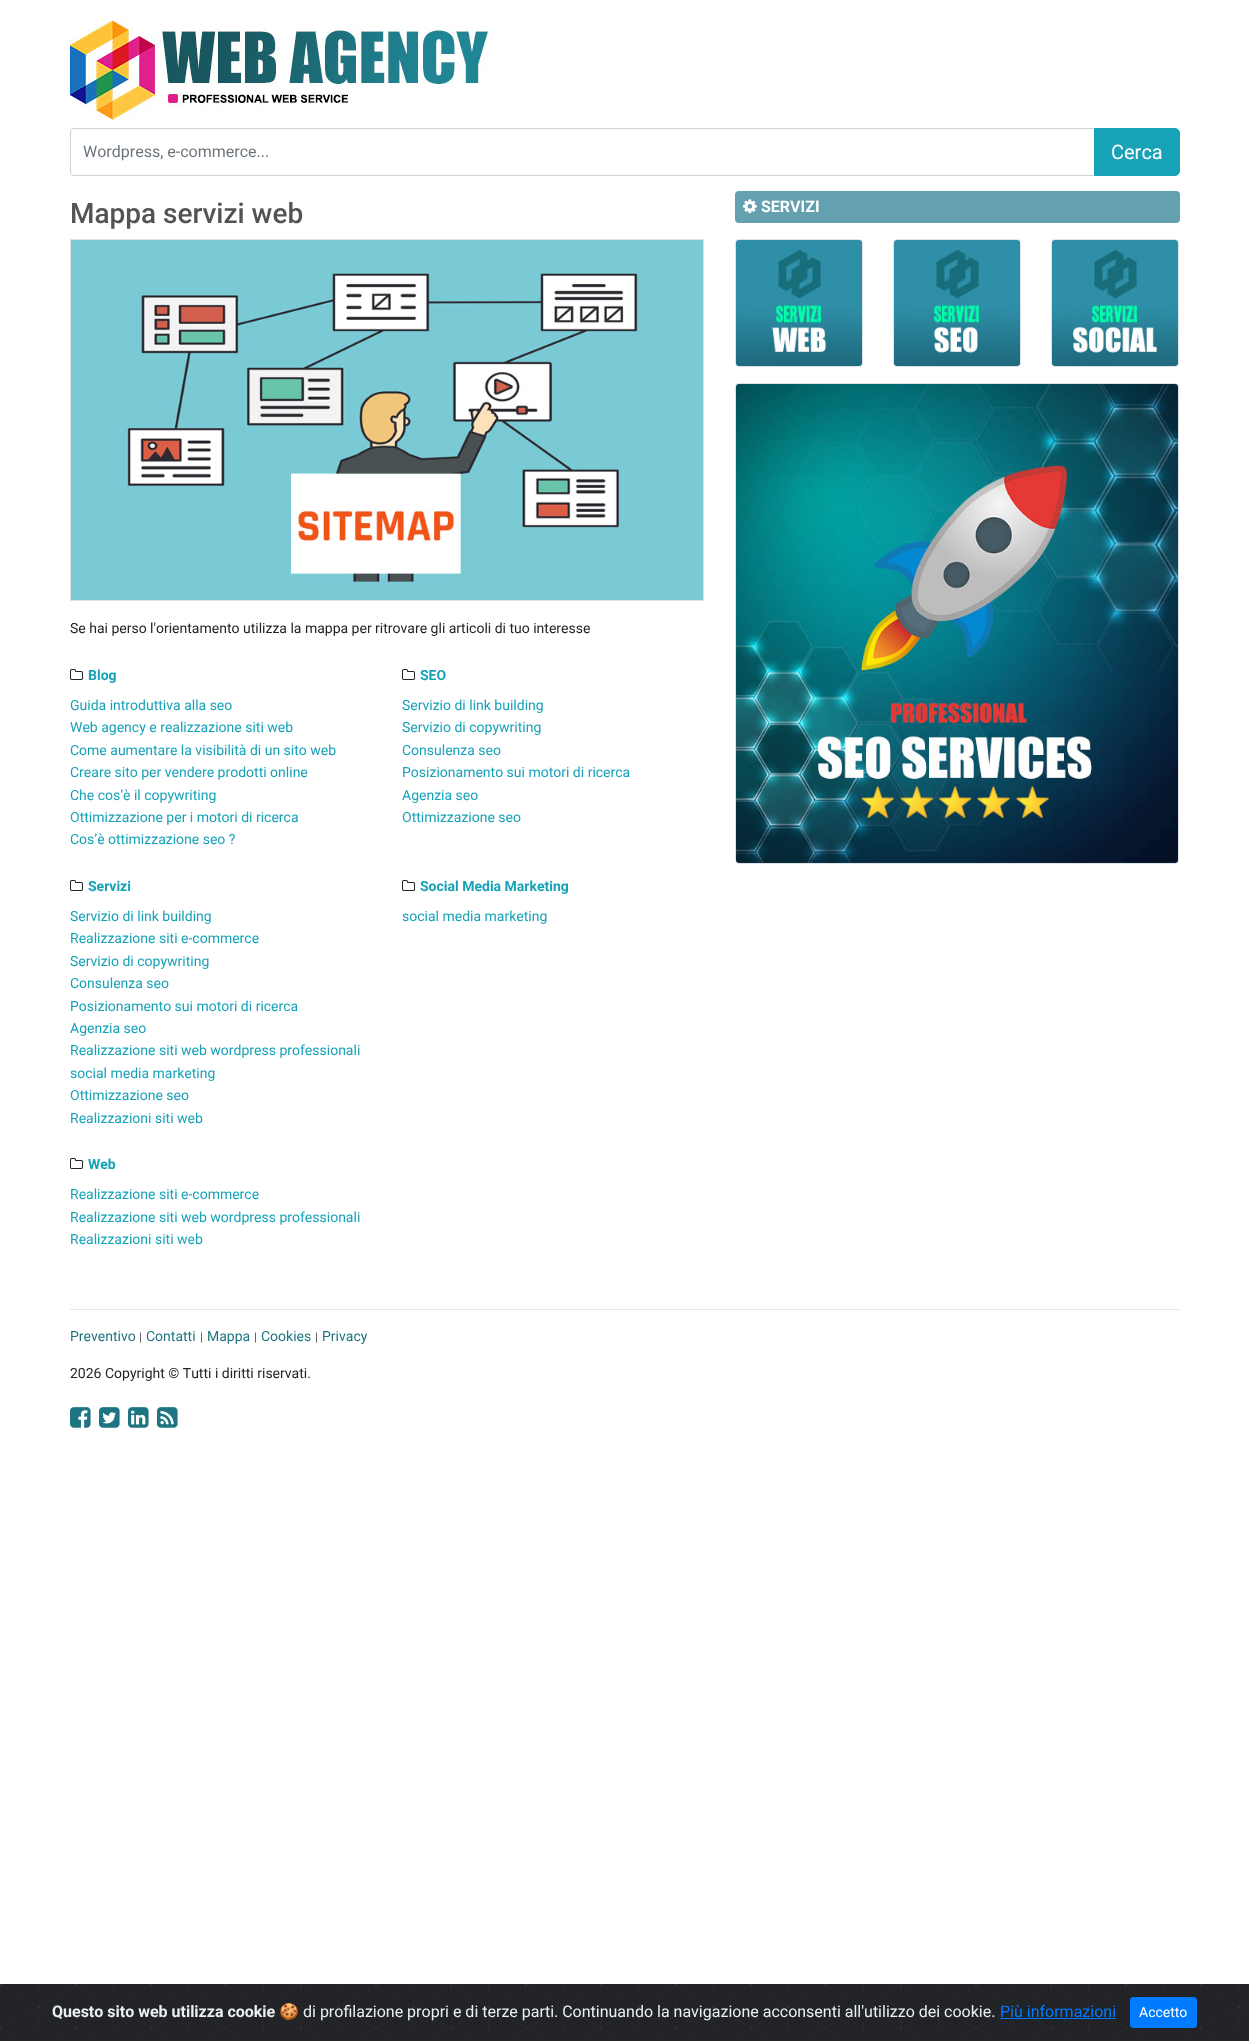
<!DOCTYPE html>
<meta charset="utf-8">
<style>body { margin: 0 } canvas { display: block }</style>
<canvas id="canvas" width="1249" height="2041"></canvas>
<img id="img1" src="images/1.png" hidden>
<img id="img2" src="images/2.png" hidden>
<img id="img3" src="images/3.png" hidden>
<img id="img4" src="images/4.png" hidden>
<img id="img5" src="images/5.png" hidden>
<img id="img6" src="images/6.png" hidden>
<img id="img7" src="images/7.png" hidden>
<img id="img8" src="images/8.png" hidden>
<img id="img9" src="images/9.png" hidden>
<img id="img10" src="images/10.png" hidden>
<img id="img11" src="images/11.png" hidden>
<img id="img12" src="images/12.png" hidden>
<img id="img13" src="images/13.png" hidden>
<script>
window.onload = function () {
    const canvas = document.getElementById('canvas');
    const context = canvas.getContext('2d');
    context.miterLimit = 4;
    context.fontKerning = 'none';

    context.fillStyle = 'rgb(255, 255, 255)';
    context.fillRect(0, 0, 1249, 2041);
    context.drawImage(document.getElementById('img1'), 70, 20, 420, 100);
    context.beginPath();
    context.roundRect(70.5, 128.5, 1024, 47, [3.5, 0, 0, 3.5]);
    context.strokeStyle = 'rgb(206, 212, 218)';
    context.stroke();
    context.fillStyle = 'rgb(23, 162, 184)';
    context.beginPath();
    context.roundRect(1094.5, 128.5, 85, 47, [0, 4.5, 4.5, 0]);
    context.fill();
    context.strokeStyle = 'rgb(23, 162, 184)';
    context.stroke();
    context.strokeStyle = 'rgb(222, 226, 230)';
    context.strokeRect(70.5, 239.5, 633, 361);
    context.drawImage(document.getElementById('img2'), 71, 240, 632, 360);
    context.drawImage(document.getElementById('img3'), 70, 669, 13, 11);
    context.drawImage(document.getElementById('img3'), 402, 669, 13, 11);
    context.drawImage(document.getElementById('img3'), 70, 880, 13, 11);
    context.drawImage(document.getElementById('img3'), 402, 880, 13, 11);
    context.drawImage(document.getElementById('img3'), 70, 1158, 13, 11);
    context.fillStyle = 'rgb(99, 160, 176)';
    context.beginPath();
    context.roundRect(735, 191, 445, 32, 4);
    context.fill();
    context.drawImage(document.getElementById('img4'), 743, 199, 14, 15);
    context.beginPath();
    context.roundRect(735.5, 239.5, 127, 127, 3.5);
    context.stroke();
    context.drawImage(document.getElementById('img5'), 736, 240, 126, 126);
    context.beginPath();
    context.roundRect(893.5, 239.5, 127, 127, 3.5);
    context.stroke();
    context.drawImage(document.getElementById('img6'), 894, 240, 126, 126);
    context.beginPath();
    context.roundRect(1051.5, 239.5, 127, 127, 3.5);
    context.stroke();
    context.drawImage(document.getElementById('img7'), 1052, 240, 126, 126);
    context.beginPath();
    context.roundRect(735.5, 383.5, 443, 480, 3.5);
    context.stroke();
    context.drawImage(document.getElementById('img8'), 736, 384, 442, 479);
    context.fillStyle = 'rgb(230, 230, 230)';
    context.fillRect(70, 1309, 1110, 1);
    context.drawImage(document.getElementById('img9'), 70, 1407, 21, 21);
    context.drawImage(document.getElementById('img10'), 99, 1407, 21, 21);
    context.drawImage(document.getElementById('img11'), 128, 1407, 21, 21);
    context.drawImage(document.getElementById('img12'), 157, 1407, 21, 21);
    context.fillStyle = 'rgb(33, 35, 39)';
    context.fillRect(1248, 1984, 1, 57);
    context.drawImage(document.getElementById('img13'), 0, 1984, 1248, 57);
    context.fillStyle = 'rgb(0, 123, 255)';
    context.fillRect(1000, 2018, 116, 1);
    context.beginPath();
    context.roundRect(1130.5, 1997.5, 66, 30, 2.5);
    context.fill();
    context.strokeStyle = 'rgb(0, 123, 255)';
    context.stroke();
    context.font = '16px Roboto';
    context.fillStyle = 'rgb(108, 117, 125)';
    context.fillText('Wordpress, e-commerce...', 83, 157);
    context.font = '20px Roboto';
    context.fillStyle = 'rgb(255, 255, 255)';
    context.fillText('Cerca', 1111, 159);
    context.font = '500 28px Roboto';
    context.fillStyle = 'rgb(83, 83, 83)';
    context.fillText('Mappa servizi web', 70, 223);
    context.font = '14px Roboto';
    context.fillStyle = 'rgb(33, 37, 41)';
    context.fillText('Se hai perso l\'orientamento utilizza la mappa per ritrovare gli articoli di tuo interesse', 70, 633);
    context.font = 'bold 14px Roboto';
    context.fillStyle = 'rgb(23, 162, 184)';
    context.fillText('Blog', 88, 680);
    context.font = '14px Roboto';
    context.fillText('Guida introduttiva alla seo', 70, 710);
    context.fillText('Web agency e realizzazione siti web', 70, 732);
    context.fillText('Come aumentare la visibilità di un sito web', 70, 755);
    context.fillText('Creare sito per vendere prodotti online', 70, 777);
    context.fillText('Che cos’è il copywriting', 70, 800);
    context.fillText('Ottimizzazione per i motori di ricerca', 70, 822);
    context.fillText('Cos’è ottimizzazione seo ?', 70, 844);
    context.font = 'bold 14px Roboto';
    context.fillText('SEO', 420, 680);
    context.font = '14px Roboto';
    context.fillText('Servizio di link building', 402, 710);
    context.fillText('Servizio di copywriting', 402, 732);
    context.fillText('Consulenza seo', 402, 755);
    context.fillText('Posizionamento sui motori di ricerca', 402, 777);
    context.fillText('Agenzia seo', 402, 800);
    context.fillText('Ottimizzazione seo', 402, 822);
    context.font = 'bold 14px Roboto';
    context.fillText('Servizi', 88, 891);
    context.font = '14px Roboto';
    context.fillText('Servizio di link building', 70, 921);
    context.fillText('Realizzazione siti e-commerce', 70, 943);
    context.fillText('Servizio di copywriting', 70, 966);
    context.fillText('Consulenza seo', 70, 988);
    context.fillText('Posizionamento sui motori di ricerca', 70, 1011);
    context.fillText('Agenzia seo', 70, 1033);
    context.fillText('Realizzazione siti web wordpress professionali', 70, 1055);
    context.fillText('social media marketing', 70, 1078);
    context.fillText('Ottimizzazione seo', 70, 1100);
    context.fillText('Realizzazioni siti web', 70, 1123);
    context.font = 'bold 14px Roboto';
    context.fillText('Social Media Marketing', 420, 891);
    context.font = '14px Roboto';
    context.fillText('social media marketing', 402, 921);
    context.font = 'bold 14px Roboto';
    context.fillText('Web', 88, 1169);
    context.font = '14px Roboto';
    context.fillText('Realizzazione siti e-commerce', 70, 1199);
    context.fillText('Realizzazione siti web wordpress professionali', 70, 1222);
    context.fillText('Realizzazioni siti web', 70, 1244);
    context.font = 'bold 16px Roboto';
    context.fillStyle = 'rgb(255, 255, 255)';
    context.fillText('SERVIZI', 761, 212);
    context.font = '14px Roboto';
    context.fillStyle = 'rgb(30, 116, 128)';
    context.fillText('Preventivo', 70, 1341);
    context.font = '12px Roboto';
    context.fillStyle = 'rgb(83, 83, 83)';
    context.fillText('|', 139, 1341);
    context.font = '14px Roboto';
    context.fillStyle = 'rgb(30, 116, 128)';
    context.fillText('Contatti', 146, 1341);
    context.font = '12px Roboto';
    context.fillStyle = 'rgb(83, 83, 83)';
    context.fillText('|', 200, 1341);
    context.font = '14px Roboto';
    context.fillStyle = 'rgb(30, 116, 128)';
    context.fillText('Mappa', 207, 1341);
    context.font = '12px Roboto';
    context.fillStyle = 'rgb(83, 83, 83)';
    context.fillText('|', 254, 1341);
    context.font = '14px Roboto';
    context.fillStyle = 'rgb(30, 116, 128)';
    context.fillText('Cookies', 261, 1341);
    context.font = '12px Roboto';
    context.fillStyle = 'rgb(83, 83, 83)';
    context.fillText('|', 315, 1341);
    context.font = '14px Roboto';
    context.fillStyle = 'rgb(30, 116, 128)';
    context.fillText('Privacy', 322, 1341);
    context.fillStyle = 'rgb(33, 37, 41)';
    context.fillText('2026 Copyright © Tutti i diritti riservati.', 70, 1378);
    context.font = 'bold 16px Roboto';
    context.fillStyle = 'rgb(236, 240, 241)';
    context.fillText('Questo sito web utilizza cookie', 52, 2017);
    context.font = '16px Noto Color Emoji';
    context.fillText('🍪', 279, 2017);
    context.font = '16px Roboto';
    context.fillText('di profilazione propri e di terze parti. Continuando la navigazione acconsenti all\'utilizzo dei cookie.', 303, 2017);
    context.fillStyle = 'rgb(0, 123, 255)';
    context.fillText('Più informazioni', 1000, 2017);
    context.font = '14px Roboto';
    context.fillStyle = 'rgb(255, 255, 255)';
    context.fillText('Accetto', 1139, 2017);
};
</script>
